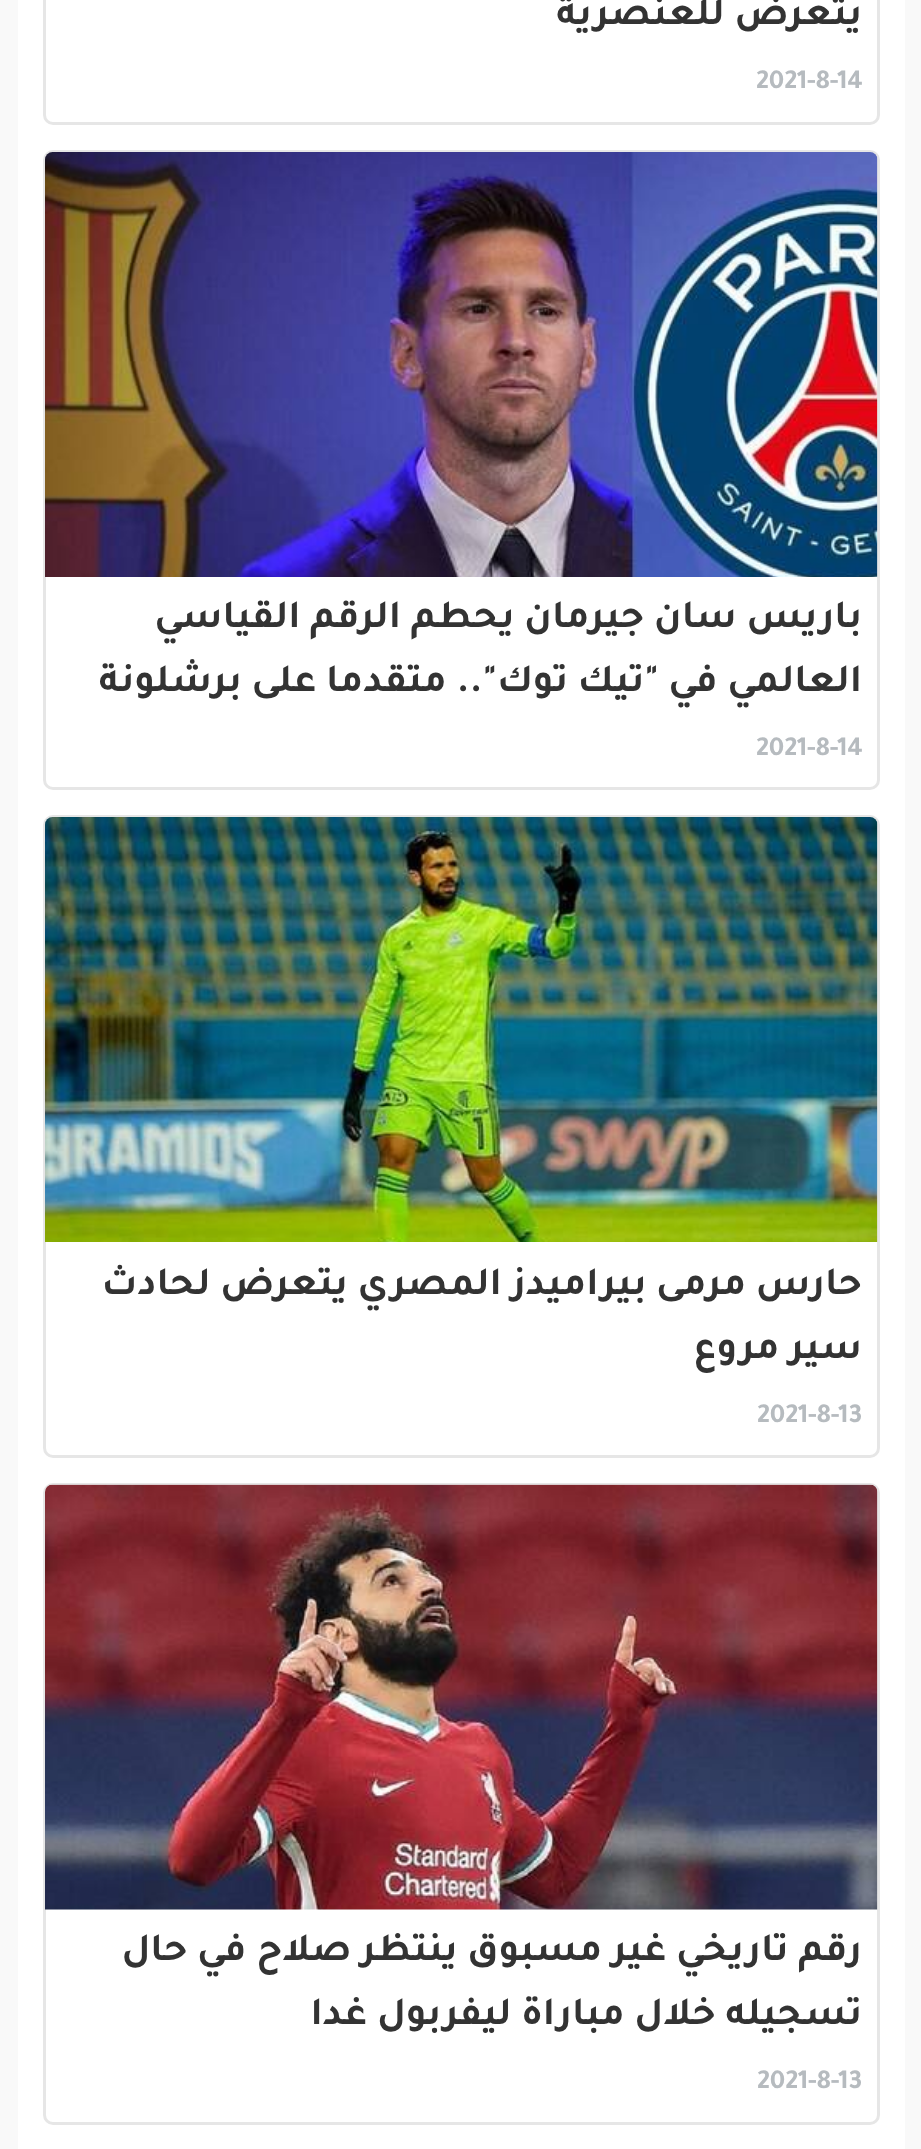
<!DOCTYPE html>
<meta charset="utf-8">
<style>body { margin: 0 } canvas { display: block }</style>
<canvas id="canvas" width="921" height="2149"></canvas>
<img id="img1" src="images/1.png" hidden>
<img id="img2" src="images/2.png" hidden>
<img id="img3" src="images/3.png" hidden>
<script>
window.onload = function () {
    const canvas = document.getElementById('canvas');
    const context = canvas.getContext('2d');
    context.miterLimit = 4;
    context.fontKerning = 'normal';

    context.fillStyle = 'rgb(249, 249, 249)';
    context.fillRect(0, 0, 921, 2149);
    context.fillStyle = 'rgb(255, 255, 255)';
    context.fillRect(18, 0, 887, 2149);
    context.beginPath();
    context.roundRect(44.5, -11.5, 834, 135, 8.5);
    context.strokeStyle = 'rgb(230, 230, 230)';
    context.lineWidth = 3;
    context.stroke();
    context.beginPath();
    context.roundRect(44.5, 151.5, 834, 637, 8.5);
    context.stroke();
    context.drawImage(document.getElementById('img1'), 45, 152, 833, 425);
    context.beginPath();
    context.roundRect(44.5, 816.5, 834, 640, 8.5);
    context.stroke();
    context.drawImage(document.getElementById('img2'), 45, 817, 833, 425);
    context.beginPath();
    context.roundRect(44.5, 1484.5, 834, 639, 8.5);
    context.stroke();
    context.drawImage(document.getElementById('img3'), 45, 1484, 833, 426);
    context.direction = 'rtl';
    context.font = 'bold 40px Tajawal';
    context.fillStyle = 'rgb(51, 51, 51)';
    context.fillText('يتعرض للعنصرية', 862, 24);
    context.direction = 'ltr';
    context.font = 'bold 27.5px Tajawal';
    context.fillStyle = 'rgb(182, 187, 191)';
    context.fillText('2021-8-14', 756, 88);
    context.direction = 'rtl';
    context.font = 'bold 40px Tajawal';
    context.fillStyle = 'rgb(51, 51, 51)';
    context.fillText('باريس سان جيرمان يحطم الرقم القياسي', 862, 627);
    context.fillText('العالمي في "تيك توك".. متقدما على برشلونة', 862, 691);
    context.direction = 'ltr';
    context.font = 'bold 27.5px Tajawal';
    context.fillStyle = 'rgb(182, 187, 191)';
    context.fillText('2021-8-14', 756, 755);
    context.direction = 'rtl';
    context.font = 'bold 40px Tajawal';
    context.fillStyle = 'rgb(51, 51, 51)';
    context.fillText('حارس مرمى بيراميدز المصري يتعرض لحادث', 862, 1294);
    context.fillText('سير مروع', 862, 1358);
    context.direction = 'ltr';
    context.font = 'bold 27.5px Tajawal';
    context.fillStyle = 'rgb(182, 187, 191)';
    context.fillText('2021-8-13', 757, 1422);
    context.direction = 'rtl';
    context.font = 'bold 40px Tajawal';
    context.fillStyle = 'rgb(51, 51, 51)';
    context.fillText('رقم تاريخي غير مسبوق ينتظر صلاح في حال', 862, 1960);
    context.fillText('تسجيله خلال مباراة ليفربول غدا', 862, 2024);
    context.direction = 'ltr';
    context.font = 'bold 27.5px Tajawal';
    context.fillStyle = 'rgb(182, 187, 191)';
    context.fillText('2021-8-13', 757, 2088);
};
</script>
